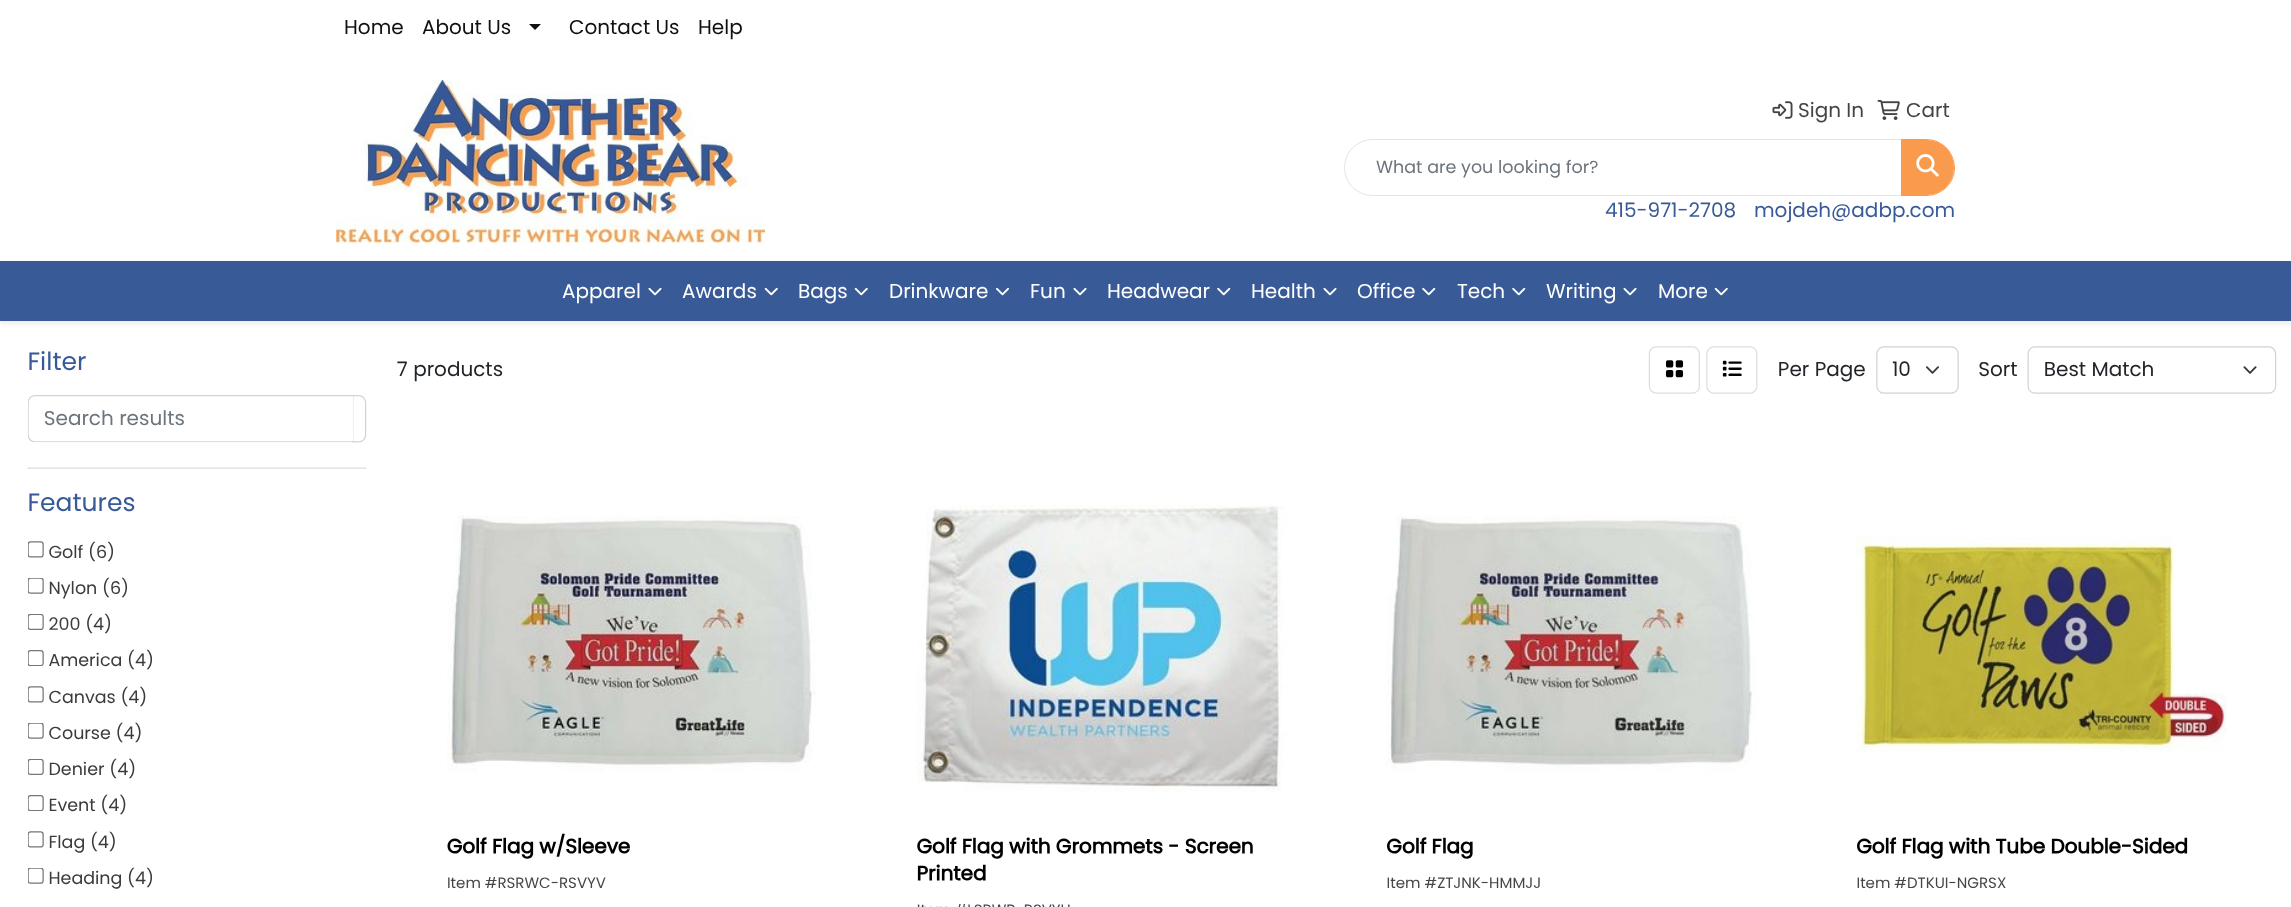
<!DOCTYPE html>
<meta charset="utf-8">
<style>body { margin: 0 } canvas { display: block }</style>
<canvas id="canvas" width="2291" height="907"></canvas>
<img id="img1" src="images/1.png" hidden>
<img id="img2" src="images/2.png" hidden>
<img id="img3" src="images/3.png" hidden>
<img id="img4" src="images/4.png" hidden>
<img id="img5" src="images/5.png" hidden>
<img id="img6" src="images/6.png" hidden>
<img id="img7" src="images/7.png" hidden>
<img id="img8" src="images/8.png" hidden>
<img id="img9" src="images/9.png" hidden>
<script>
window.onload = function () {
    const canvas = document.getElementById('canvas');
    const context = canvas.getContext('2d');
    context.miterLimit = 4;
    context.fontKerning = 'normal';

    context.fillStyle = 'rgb(255, 255, 255)';
    context.fillRect(0, 0, 2291, 907);
    context.fillStyle = 'rgb(14, 17, 17)';
    context.beginPath();
    context.moveTo(529, 24);
    context.lineTo(541, 24);
    context.lineTo(535, 30);
    context.closePath();
    context.fill();
    context.drawImage(document.getElementById('img1'), 336, 80, 429, 163);
    context.drawImage(document.getElementById('img2'), 1772, 101, 21, 18);
    context.drawImage(document.getElementById('img3'), 1877, 100, 23, 20);
    context.beginPath();
    context.roundRect(1344.5, 139.5, 558, 56, [28, 0, 0, 28]);
    context.strokeStyle = 'rgb(228, 228, 228)';
    context.stroke();
    context.fillStyle = 'rgb(250, 154, 77)';
    context.beginPath();
    context.roundRect(1901, 140, 53, 55, [0, 27.5, 27.5, 0]);
    context.fill();
    context.beginPath();
    context.moveTo(1901, 139);
    context.lineTo(1926, 139);
    context.bezierCurveTo(1942, 139, 1955, 152, 1955, 168);
    context.bezierCurveTo(1955, 183, 1942, 196, 1926, 196);
    context.lineTo(1901, 196);
    context.closePath();
    context.moveTo(1901, 140);
    context.lineTo(1926, 140);
    context.bezierCurveTo(1941, 140, 1954, 152, 1954, 168);
    context.bezierCurveTo(1954, 183, 1941, 195, 1926, 195);
    context.lineTo(1901, 195);
    context.closePath();
    context.fill('evenodd');
    context.drawImage(document.getElementById('img4'), 1916, 154, 23, 23);
    context.fillStyle = 'rgba(0, 0, 0, 0.07)';
    context.filter = 'blur(2.5px)';
    context.beginPath();
    context.rect(0, 264, 2291, 60);
    context.fill();
    context.filter = 'none';
    context.fillStyle = 'rgb(56, 90, 151)';
    context.fillRect(0, 261, 2291, 60);
    context.drawImage(document.getElementById('img5'), 648, 287, 14, 9);
    context.drawImage(document.getElementById('img6'), 764, 287, 14, 9);
    context.drawImage(document.getElementById('img6'), 854, 287, 14, 9);
    context.drawImage(document.getElementById('img7'), 996, 287, 13, 9);
    context.drawImage(document.getElementById('img5'), 1073, 287, 14, 9);
    context.drawImage(document.getElementById('img8'), 1217, 287, 14, 9);
    context.drawImage(document.getElementById('img5'), 1323, 287, 14, 9);
    context.drawImage(document.getElementById('img8'), 1422, 287, 14, 9);
    context.drawImage(document.getElementById('img8'), 1512, 287, 14, 9);
    context.drawImage(document.getElementById('img5'), 1623, 287, 14, 9);
    context.drawImage(document.getElementById('img6'), 1714, 287, 14, 9);
    context.drawImage(document.getElementById('img9'), 27, 346, 2250, 561);
    context.font = '20px Poppins';
    context.fillStyle = 'rgb(14, 17, 17)';
    context.fillText('Home', 344, 34);
    context.fillText('About Us', 422, 34);
    context.fillText('Contact Us', 569, 34);
    context.fillText('Help', 698, 34);
    context.fillStyle = 'rgb(68, 68, 68)';
    context.fillText('Sign In', 1798, 117);
    context.fillText('Cart', 1906, 117);
    context.font = '17.5px Poppins';
    context.fillStyle = 'rgb(108, 117, 125)';
    context.fillText('What are you looking for?', 1376, 173);
    context.font = '20px Poppins';
    context.fillStyle = 'rgb(56, 90, 151)';
    context.fillText('415-971-2708', 1605, 217);
    context.fillText('mojdeh@adbp.com', 1754, 217);
    context.fillStyle = 'rgb(255, 255, 255)';
    context.fillText('Apparel', 562, 298);
    context.fillText('Awards', 682, 298);
    context.fillText('Bags', 798, 298);
    context.fillText('Drinkware', 889, 298);
    context.fillText('Fun', 1030, 298);
    context.fillText('Headwear', 1107, 298);
    context.fillText('Health', 1251, 298);
    context.fillText('Office', 1357, 298);
    context.fillText('Tech', 1457, 298);
    context.fillText('Writing', 1546, 298);
    context.fillText('More', 1658, 298);
};
</script>
